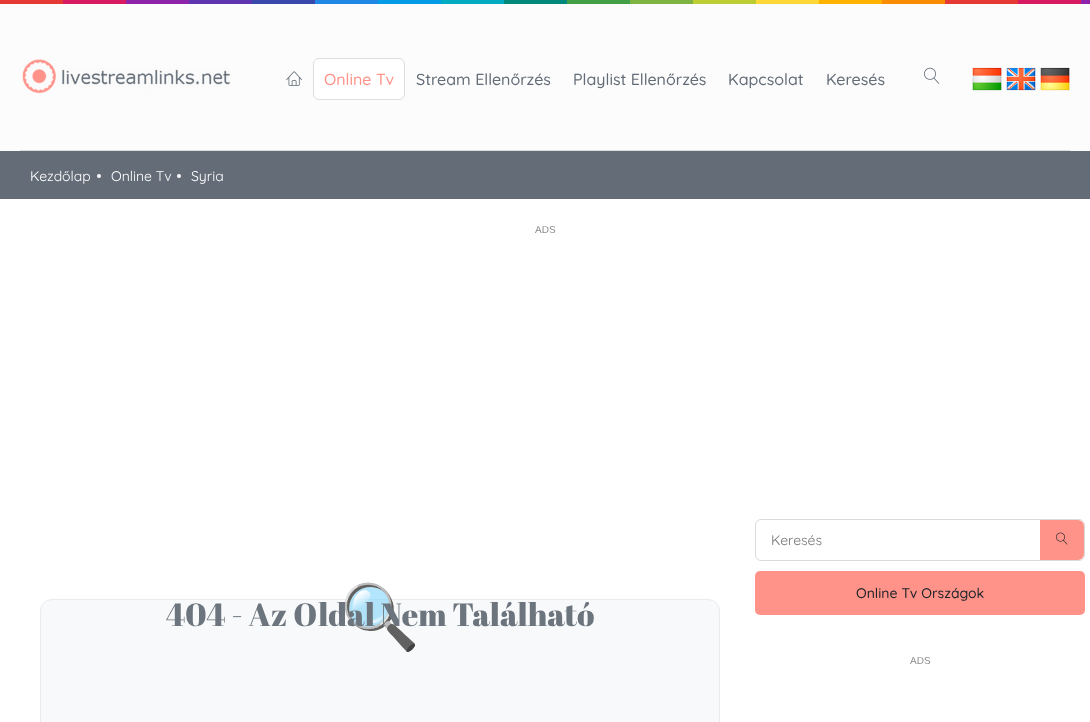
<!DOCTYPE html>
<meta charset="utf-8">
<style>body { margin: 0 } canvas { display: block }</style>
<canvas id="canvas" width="1090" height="722"></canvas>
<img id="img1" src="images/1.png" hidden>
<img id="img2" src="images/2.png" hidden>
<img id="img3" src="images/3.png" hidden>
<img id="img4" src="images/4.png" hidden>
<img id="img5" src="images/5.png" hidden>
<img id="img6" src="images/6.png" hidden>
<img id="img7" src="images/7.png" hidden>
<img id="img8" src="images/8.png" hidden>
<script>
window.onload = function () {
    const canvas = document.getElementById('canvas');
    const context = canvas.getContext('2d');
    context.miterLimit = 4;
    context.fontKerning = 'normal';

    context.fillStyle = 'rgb(255, 255, 255)';
    context.fillRect(0, 0, 1090, 722);
    context.drawImage(document.getElementById('img1'), 0, 0, 1090, 4);
    context.fillStyle = 'rgb(252, 252, 252)';
    context.fillRect(0, 4, 1090, 147);
    context.fillStyle = 'rgb(221, 221, 221)';
    context.fillRect(20, 150, 1050, 1);
    context.drawImage(document.getElementById('img2'), 22, 59, 209, 35);
    context.drawImage(document.getElementById('img3'), 286, 71, 17, 15);
    context.fillStyle = 'rgb(255, 255, 255)';
    context.beginPath();
    context.roundRect(313.5, 58.5, 91, 41, 5.5);
    context.fill();
    context.strokeStyle = 'rgb(221, 221, 221)';
    context.stroke();
    context.drawImage(document.getElementById('img4'), 924, 67, 16, 17);
    context.drawImage(document.getElementById('img5'), 972, 67, 30, 24);
    context.drawImage(document.getElementById('img6'), 1006, 67, 30, 24);
    context.drawImage(document.getElementById('img7'), 1040, 67, 30, 24);
    context.fillStyle = 'rgb(99, 108, 119)';
    context.fillRect(0, 151, 1090, 48);
    context.fillStyle = 'rgb(255, 255, 255)';
    context.beginPath();
    context.arc(99, 176, 2, 0, 2 * Math.PI);
    context.fill();
    context.beginPath();
    context.arc(179, 176, 2, 0, 2 * Math.PI);
    context.fill();
    context.fillStyle = 'rgb(248, 249, 250)';
    context.beginPath();
    context.roundRect(40.5, 599.5, 679, 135, 11.5);
    context.fill();
    context.strokeStyle = 'rgb(233, 236, 239)';
    context.stroke();
    context.beginPath();
    context.roundRect(755.5, 519.5, 329, 41, 5.5);
    context.strokeStyle = 'rgb(219, 219, 219)';
    context.stroke();
    context.fillStyle = 'rgb(255, 147, 138)';
    context.beginPath();
    context.roundRect(1040, 520, 44, 40, [0, 6, 6, 0]);
    context.fill();
    context.drawImage(document.getElementById('img8'), 1056, 532, 12, 13);
    context.beginPath();
    context.roundRect(755, 571, 330, 44, 5);
    context.fill();
    context.font = '500 16px Quicksand';
    context.fillText('Online Tv', 324, 85);
    context.fillStyle = 'rgb(99, 108, 119)';
    context.fillText('Stream Ellenőrzés', 416, 85);
    context.fillText('Playlist Ellenőrzés', 573, 85);
    context.fillText('Kapcsolat', 728, 85);
    context.fillText('Keresés', 826, 85);
    context.font = '14px Quicksand';
    context.fillStyle = 'rgb(255, 255, 255)';
    context.fillText('Kezdőlap', 30, 181);
    context.fillText('Online Tv', 111, 181);
    context.fillText('Syria', 191, 181);
    context.font = '10px Liberation Sans';
    context.fillStyle = 'rgb(136, 136, 136)';
    context.fillText('ADS', 535, 233);
    context.font = '64px Noto Color Emoji';
    context.fillStyle = 'rgb(144, 151, 159)';
    context.fillText('🔍', 340, 639);
    context.font = '32px Abril Fatface';
    context.fillStyle = 'rgb(108, 117, 125)';
    context.fillText('404 - Az Oldal Nem Található', 166, 626);
    context.font = '14px Quicksand';
    context.fillStyle = 'rgb(117, 117, 117)';
    context.fillText('Keresés', 771, 545);
    context.font = '500 14px Quicksand';
    context.fillStyle = 'rgb(33, 37, 41)';
    context.fillText('Online Tv Országok', 856, 598);
    context.font = '10px Liberation Sans';
    context.fillStyle = 'rgb(136, 136, 136)';
    context.fillText('ADS', 910, 664);
};
</script>
